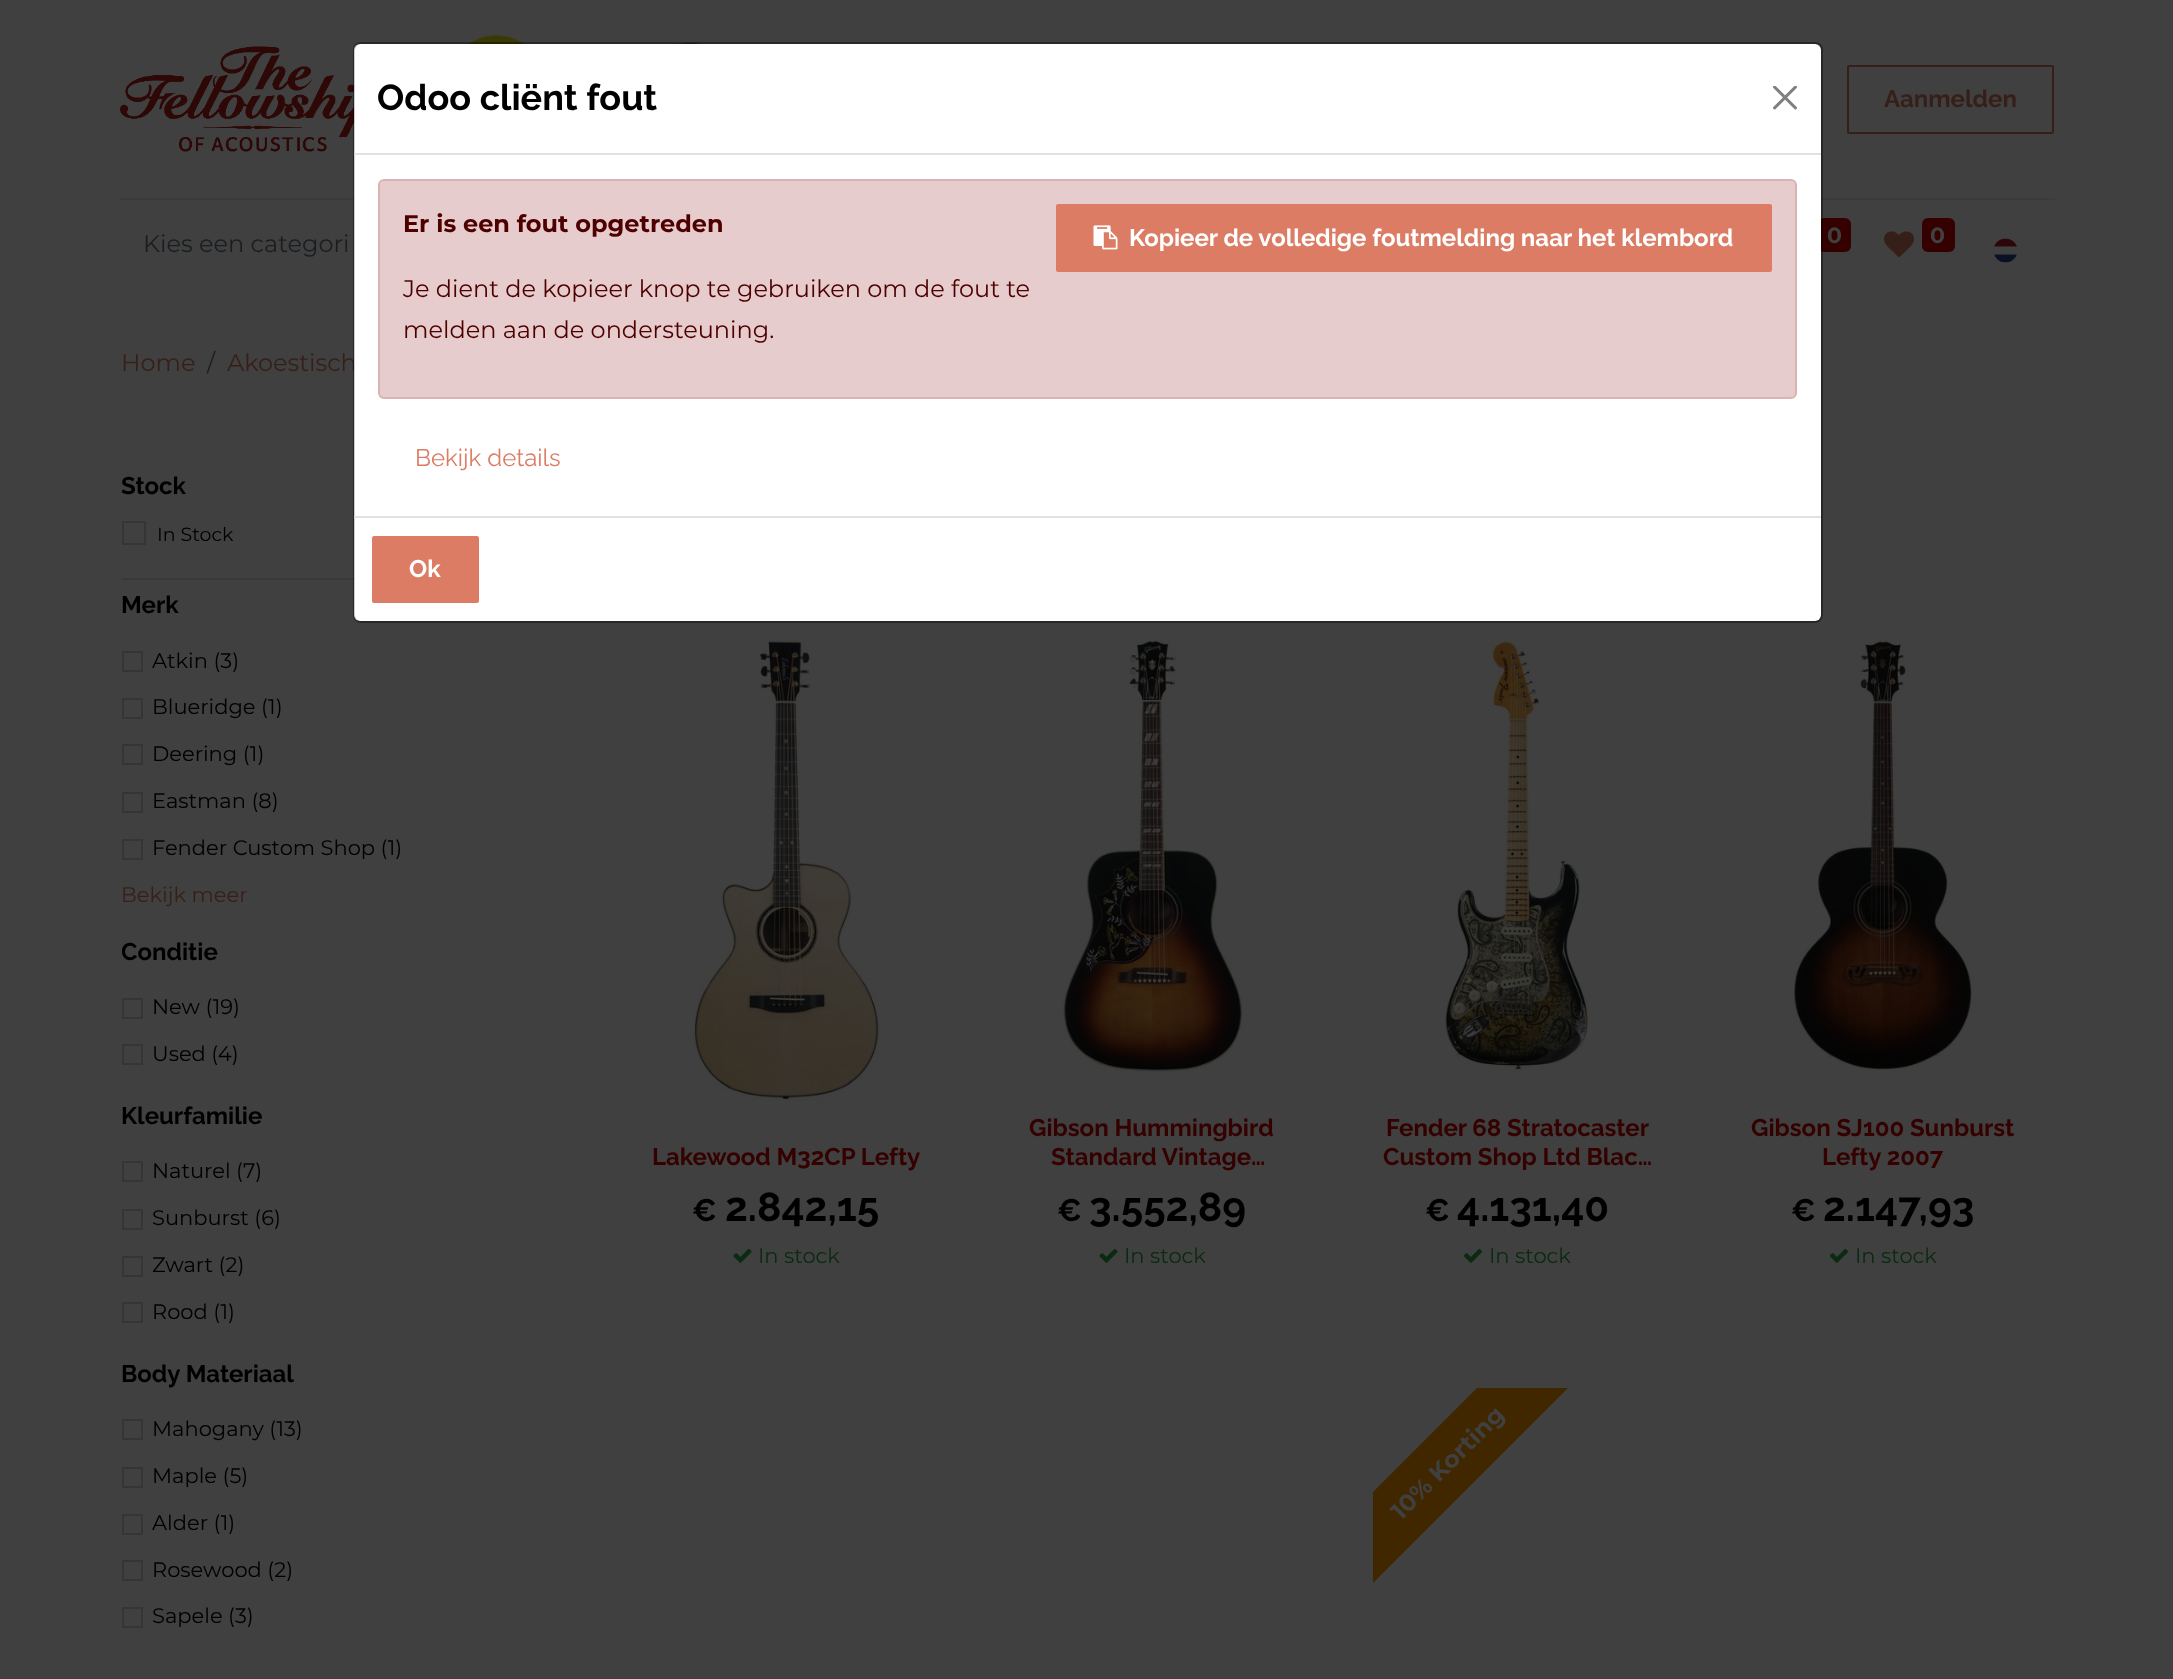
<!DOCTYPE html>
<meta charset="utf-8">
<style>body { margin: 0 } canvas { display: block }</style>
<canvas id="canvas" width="2173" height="1679"></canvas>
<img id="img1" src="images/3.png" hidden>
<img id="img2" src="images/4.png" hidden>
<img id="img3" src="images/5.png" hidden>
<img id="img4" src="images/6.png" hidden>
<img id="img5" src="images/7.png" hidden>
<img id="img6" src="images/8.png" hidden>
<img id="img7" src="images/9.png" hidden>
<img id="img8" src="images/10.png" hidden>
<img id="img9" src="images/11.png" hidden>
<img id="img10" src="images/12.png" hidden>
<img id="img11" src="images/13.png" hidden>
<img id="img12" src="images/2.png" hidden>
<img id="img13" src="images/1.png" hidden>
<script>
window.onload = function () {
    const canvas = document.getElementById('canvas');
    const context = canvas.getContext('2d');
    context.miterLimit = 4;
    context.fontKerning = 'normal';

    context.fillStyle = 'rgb(64, 64, 64)';
    context.fillRect(0, 0, 2173, 1679);
    context.drawImage(document.getElementById('img1'), 468, 35, 57, 9);
    context.drawImage(document.getElementById('img2'), 676, 41, 29, 3);
    context.drawImage(document.getElementById('img3'), 120, 46, 234, 106);
    context.beginPath();
    context.roundRect(1848, 66, 205, 67, 1);
    context.strokeStyle = 'rgb(55, 31, 25)';
    context.lineWidth = 2;
    context.stroke();
    context.fillStyle = 'rgb(59, 59, 60)';
    context.fillRect(120, 198, 1935, 2);
    context.fillStyle = 'rgb(52, 0, 0)';
    context.beginPath();
    context.roundRect(1818, 218, 33, 34, 6);
    context.fill();
    context.drawImage(document.getElementById('img4'), 1884, 231, 30, 27);
    context.beginPath();
    context.roundRect(1922, 218, 33, 34, 6);
    context.fill();
    context.drawImage(document.getElementById('img5'), 1994, 238, 23, 25);
    context.fillStyle = 'rgb(56, 57, 58)';
    context.fillRect(122, 578, 232, 2);
    context.strokeStyle = 'rgb(52, 53, 55)';
    context.strokeRect(123, 522, 22, 22);
    context.strokeRect(123, 652, 19, 19);
    context.strokeRect(123, 699, 19, 19);
    context.strokeRect(123, 745, 19, 19);
    context.strokeRect(123, 793, 19, 19);
    context.strokeRect(123, 840, 19, 19);
    context.strokeRect(123, 999, 19, 19);
    context.strokeRect(123, 1045, 19, 19);
    context.strokeRect(123, 1162, 19, 19);
    context.strokeRect(123, 1210, 19, 19);
    context.strokeRect(123, 1257, 19, 19);
    context.strokeRect(123, 1303, 19, 19);
    context.strokeRect(123, 1420, 19, 19);
    context.strokeRect(123, 1468, 19, 19);
    context.strokeRect(123, 1515, 19, 19);
    context.strokeRect(123, 1561, 19, 19);
    context.strokeRect(123, 1608, 19, 19);
    context.drawImage(document.getElementById('img6'), 693, 639, 186, 462);
    context.drawImage(document.getElementById('img7'), 733, 1248, 19, 15);
    context.drawImage(document.getElementById('img8'), 1062, 640, 183, 432);
    context.drawImage(document.getElementById('img7'), 1099, 1248, 19, 15);
    context.drawImage(document.getElementById('img9'), 1444, 639, 145, 433);
    context.drawImage(document.getElementById('img10'), 1463, 1248, 20, 15);
    context.drawImage(document.getElementById('img11'), 1793, 639, 184, 432);
    context.drawImage(document.getElementById('img10'), 1829, 1248, 20, 15);
    context.save();
    context.beginPath();
    context.rect(1373, 1388, 289, 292);
    context.clip();
    context.fillStyle = 'rgb(64, 39, 0)';
    context.beginPath();
    context.moveTo(1267, 1598);
    context.lineTo(1584, 1281);
    context.lineTo(1629, 1327);
    context.lineTo(1312, 1644);
    context.closePath();
    context.fill();
    context.restore();
    context.font = 'bold 24px Raleway';
    context.fillStyle = 'rgb(55, 31, 25)';
    context.fillText('Aanmelden', 1884, 107);
    context.font = '24px Montserrat';
    context.fillStyle = 'rgb(27, 30, 32)';
    context.fillText('Kies een categori', 143, 252);
    context.font = 'bold 22px Montserrat';
    context.fillStyle = 'rgb(64, 64, 64)';
    context.fillText('0', 1827, 243);
    context.fillText('0', 1930, 243);
    context.font = '24px Montserrat';
    context.fillStyle = 'rgb(55, 31, 25)';
    context.fillText('Home', 121, 371);
    context.fillStyle = 'rgb(27, 30, 32)';
    context.fillText('/', 207, 371);
    context.fillStyle = 'rgb(55, 31, 25)';
    context.fillText('Akoestisch', 227, 371);
    context.beginPath();
    context.roundRect(354, 43, 1468, 579, 7);
    context.strokeStyle = 'rgba(0, 0, 0, 0.2)';
    context.stroke();
    context.fillStyle = 'rgb(255, 255, 255)';
    context.beginPath();
    context.roundRect(354, 44, 1467, 577, 6);
    context.fill();
    context.beginPath();
    context.roundRect(354, 43, 1468, 579, 7);
    context.stroke();
    context.fillStyle = 'rgb(230, 204, 204)';
    context.beginPath();
    context.roundRect(379, 180, 1417, 218, 5);
    context.fill();
    context.strokeStyle = 'rgb(218, 179, 179)';
    context.stroke();
    context.fillStyle = 'rgb(220, 124, 100)';
    context.beginPath();
    context.roundRect(1057, 205, 714, 66, 1);
    context.fill();
    context.strokeStyle = 'rgb(220, 124, 100)';
    context.stroke();
    context.font = 'bold 24px Raleway';
    context.fillStyle = 'rgb(255, 255, 255)';
    context.fillText('Kopieer de volledige foutmelding naar het klembord', 1129, 246);
    context.drawImage(document.getElementById('img12'), 1093, 225, 25, 25);
    context.font = '24px Montserrat';
    context.fillStyle = 'rgb(78, 0, 0)';
    context.fillText('melden aan de ondersteuning.', 403, 338);
    context.fillText('Je dient de kopieer knop te gebruiken om de fout te', 403, 297);
    context.font = 'bold 24px Montserrat';
    context.fillText('Er is een fout opgetreden', 403, 232);
    context.font = '24px Raleway';
    context.fillStyle = 'rgb(220, 124, 100)';
    context.fillText('Bekijk details', 415, 466);
    context.drawImage(document.getElementById('img13'), 1773, 86, 24, 24);
    context.font = 'bold 36px Raleway';
    context.fillStyle = 'rgb(0, 0, 0)';
    context.fillText('Odoo cliënt fout', 377, 110);
    context.fillStyle = 'rgb(220, 124, 100)';
    context.beginPath();
    context.roundRect(373, 537, 105, 65, 1);
    context.fill();
    context.stroke();
    context.font = 'bold 24px Raleway';
    context.fillStyle = 'rgb(255, 255, 255)';
    context.fillText('Ok', 409, 577);
    context.fillStyle = 'rgb(222, 226, 230)';
    context.fillRect(354, 516, 1467, 2);
    context.fillRect(354, 153, 1467, 2);
    context.fillStyle = 'rgb(0, 0, 0)';
    context.fillText('Stock', 121, 494);
    context.font = '19px Montserrat';
    context.fillText('In Stock', 157, 541);
    context.font = 'bold 24px Raleway';
    context.fillText('Merk', 121, 613);
    context.font = '21px Montserrat';
    context.fillText('Atkin (3)', 152, 668);
    context.fillText('Blueridge (1)', 152, 714);
    context.fillText('Deering (1)', 152, 761);
    context.fillText('Eastman (8)', 152, 808);
    context.fillText('Fender Custom Shop (1)', 152, 855);
    context.fillStyle = 'rgb(55, 31, 25)';
    context.fillText('Bekijk meer', 121, 902);
    context.save();
    context.beginPath();
    context.rect(122, 461, 447, 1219);
    context.clip();
    context.font = 'bold 24px Raleway';
    context.fillStyle = 'rgb(0, 0, 0)';
    context.fillText('Conditie', 121, 960);
    context.restore();
    context.fillStyle = 'rgb(0, 0, 0)';
    context.fillText('New (19)', 152, 1014);
    context.fillText('Used (4)', 152, 1061);
    context.font = 'bold 24px Raleway';
    context.fillText('Kleurfamilie', 121, 1124);
    context.font = '21px Montserrat';
    context.fillText('Naturel (7)', 152, 1178);
    context.fillText('Sunburst (6)', 152, 1225);
    context.fillText('Zwart (2)', 152, 1272);
    context.fillText('Rood (1)', 152, 1319);
    context.font = 'bold 24px Raleway';
    context.fillText('Body Materiaal', 121, 1382);
    context.font = '21px Montserrat';
    context.fillText('Mahogany (13)', 152, 1436);
    context.fillText('Maple (5)', 152, 1483);
    context.fillText('Alder (1)', 152, 1530);
    context.fillText('Rosewood (2)', 152, 1577);
    context.fillText('Sapele (3)', 152, 1623);
    context.font = 'bold 24px Raleway';
    context.fillStyle = 'rgb(52, 0, 0)';
    context.fillText('Lakewood M32CP Lefty', 652, 1165);
    context.font = 'bold 31px Raleway';
    context.fillStyle = 'rgb(0, 0, 0)';
    context.fillText('€', 692, 1221);
    context.font = 'bold 40.5px Raleway';
    context.fillText('2.842,15', 725, 1221);
    context.font = '21px Montserrat';
    context.fillStyle = 'rgb(10, 42, 18)';
    context.fillText('In stock', 758, 1263);
    context.font = 'bold 24px Raleway';
    context.fillStyle = 'rgb(52, 0, 0)';
    context.fillText('Gibson Hummingbird', 1029, 1136);
    context.fillText('Standard Vintage…', 1051, 1165);
    context.font = 'bold 31px Raleway';
    context.fillStyle = 'rgb(0, 0, 0)';
    context.fillText('€', 1057, 1221);
    context.font = 'bold 40.5px Raleway';
    context.fillText('3.552,89', 1089, 1221);
    context.font = '21px Montserrat';
    context.fillStyle = 'rgb(10, 42, 18)';
    context.fillText('In stock', 1124, 1263);
    context.font = 'bold 24px Raleway';
    context.fillStyle = 'rgb(52, 0, 0)';
    context.fillText('Fender 68 Stratocaster', 1386, 1136);
    context.fillText('Custom Shop Ltd Blac…', 1383, 1165);
    context.font = 'bold 31px Raleway';
    context.fillStyle = 'rgb(0, 0, 0)';
    context.fillText('€', 1425, 1221);
    context.font = 'bold 40.5px Raleway';
    context.fillText('4.131,40', 1457, 1221);
    context.font = '21px Montserrat';
    context.fillStyle = 'rgb(10, 42, 18)';
    context.fillText('In stock', 1489, 1263);
    context.font = 'bold 24px Raleway';
    context.fillStyle = 'rgb(52, 0, 0)';
    context.fillText('Gibson SJ100 Sunburst', 1751, 1136);
    context.fillText('Lefty 2007', 1822, 1165);
    context.font = 'bold 31px Raleway';
    context.fillStyle = 'rgb(0, 0, 0)';
    context.fillText('€', 1791, 1221);
    context.font = 'bold 40.5px Raleway';
    context.fillText('2.147,93', 1823, 1221);
    context.font = '21px Montserrat';
    context.fillStyle = 'rgb(10, 42, 18)';
    context.fillText('In stock', 1855, 1263);
    context.font = 'bold 24px Montserrat';
    context.fillStyle = 'rgb(64, 64, 64)';
    context.save();
    context.translate(1401, 1521);
    context.rotate(-45 * Math.PI / 180);
    context.fillText('10% Korting', 0, 0);
    context.restore();
};
</script>
